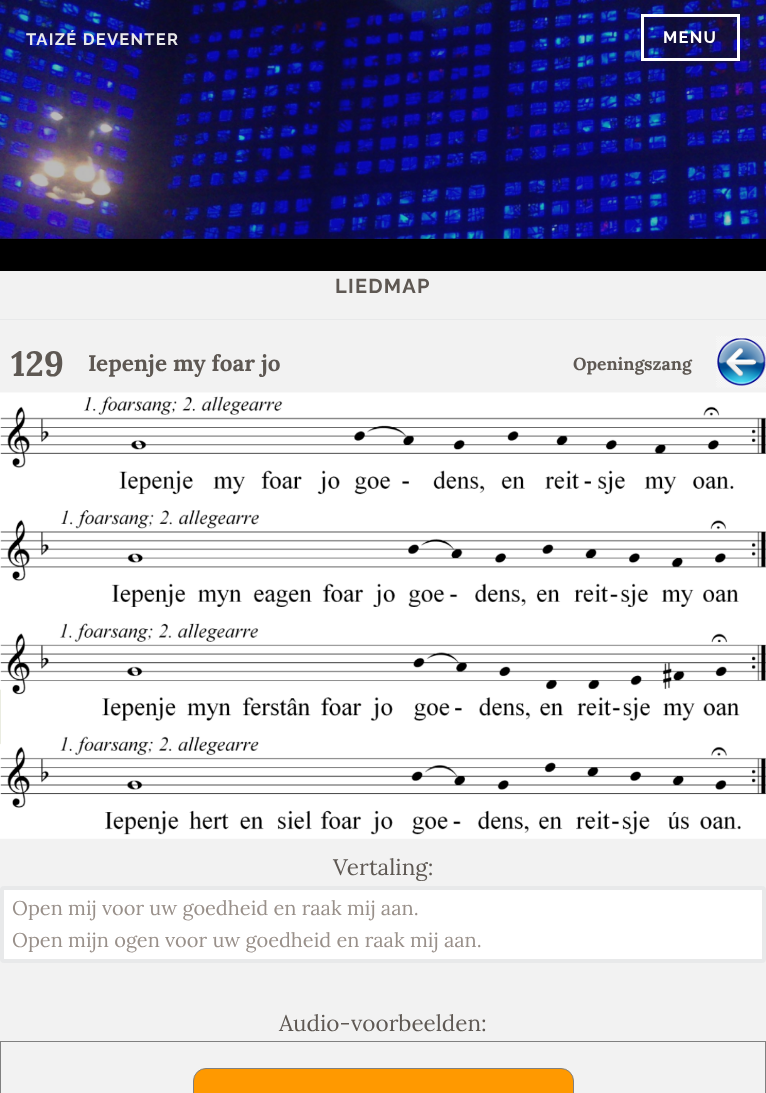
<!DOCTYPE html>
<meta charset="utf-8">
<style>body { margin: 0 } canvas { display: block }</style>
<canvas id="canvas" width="766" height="1093"></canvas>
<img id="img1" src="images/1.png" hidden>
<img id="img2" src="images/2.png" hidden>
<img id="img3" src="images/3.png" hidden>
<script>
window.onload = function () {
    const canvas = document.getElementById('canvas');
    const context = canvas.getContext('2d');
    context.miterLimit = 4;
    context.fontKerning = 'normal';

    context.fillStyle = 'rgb(242, 242, 242)';
    context.fillRect(0, 0, 766, 1093);
    context.fillStyle = 'rgb(30, 28, 27)';
    context.fillRect(0, 0, 766, 239);
    context.drawImage(document.getElementById('img1'), 0, 0, 766, 239);
    context.fillStyle = 'rgb(0, 0, 0)';
    context.fillRect(0, 239, 766, 32);
    context.strokeStyle = 'rgb(255, 255, 255)';
    context.lineWidth = 3;
    context.strokeRect(642.5, 15.5, 96, 44);
    context.fillStyle = 'rgb(232, 233, 234)';
    context.fillRect(0, 319, 766, 1);
    context.drawImage(document.getElementById('img2'), 716, 336, 50, 52);
    context.drawImage(document.getElementById('img3'), 0, 392, 766, 447);
    context.fillStyle = 'rgb(255, 255, 255)';
    context.beginPath();
    context.roundRect(2, 888, 762, 73, 2);
    context.fill();
    context.strokeStyle = 'rgb(232, 233, 234)';
    context.lineWidth = 4;
    context.stroke();
    context.strokeStyle = 'rgb(128, 128, 128)';
    context.lineWidth = 1;
    context.strokeRect(0.5, 1041.5, 765, 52);
    context.fillStyle = 'rgb(255, 153, 0)';
    context.beginPath();
    context.roundRect(193.5, 1068.5, 380, 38, 12.5);
    context.fill();
    context.stroke();
    context.letterSpacing = '1.25px';
    context.font = 'bold 16.5px Raleway';
    context.fillStyle = 'rgb(232, 233, 234)';
    context.fillText('TAIZÉ DEVENTER', 26, 45);
    context.fillStyle = 'rgb(255, 255, 255)';
    context.fillText('MENU', 663, 43);
    context.font = 'bold 20px Raleway';
    context.fillStyle = 'rgb(94, 88, 83)';
    context.fillText('LIEDMAP', 335, 293);
    context.letterSpacing = '0px';
    context.font = 'bold 35px Lora';
    context.fillText('129', 11, 376);
    context.font = 'bold 22.5px Lora';
    context.fillText('Iepenje my foar jo', 88, 371);
    context.font = 'bold 17.5px Lora';
    context.fillText('Openingszang', 573, 370);
    context.font = '22.5px Lora';
    context.fillText('Vertaling:', 333, 875);
    context.font = '20px Lora';
    context.fillStyle = 'rgb(153, 144, 138)';
    context.fillText('Open mij voor uw goedheid en raak mij aan.', 12, 915);
    context.fillText('Open mijn ogen voor uw goedheid en raak mij aan.', 12, 947);
    context.font = '22.5px Lora';
    context.fillStyle = 'rgb(94, 88, 83)';
    context.fillText('Audio-voorbeelden:', 279, 1031);
};
</script>
